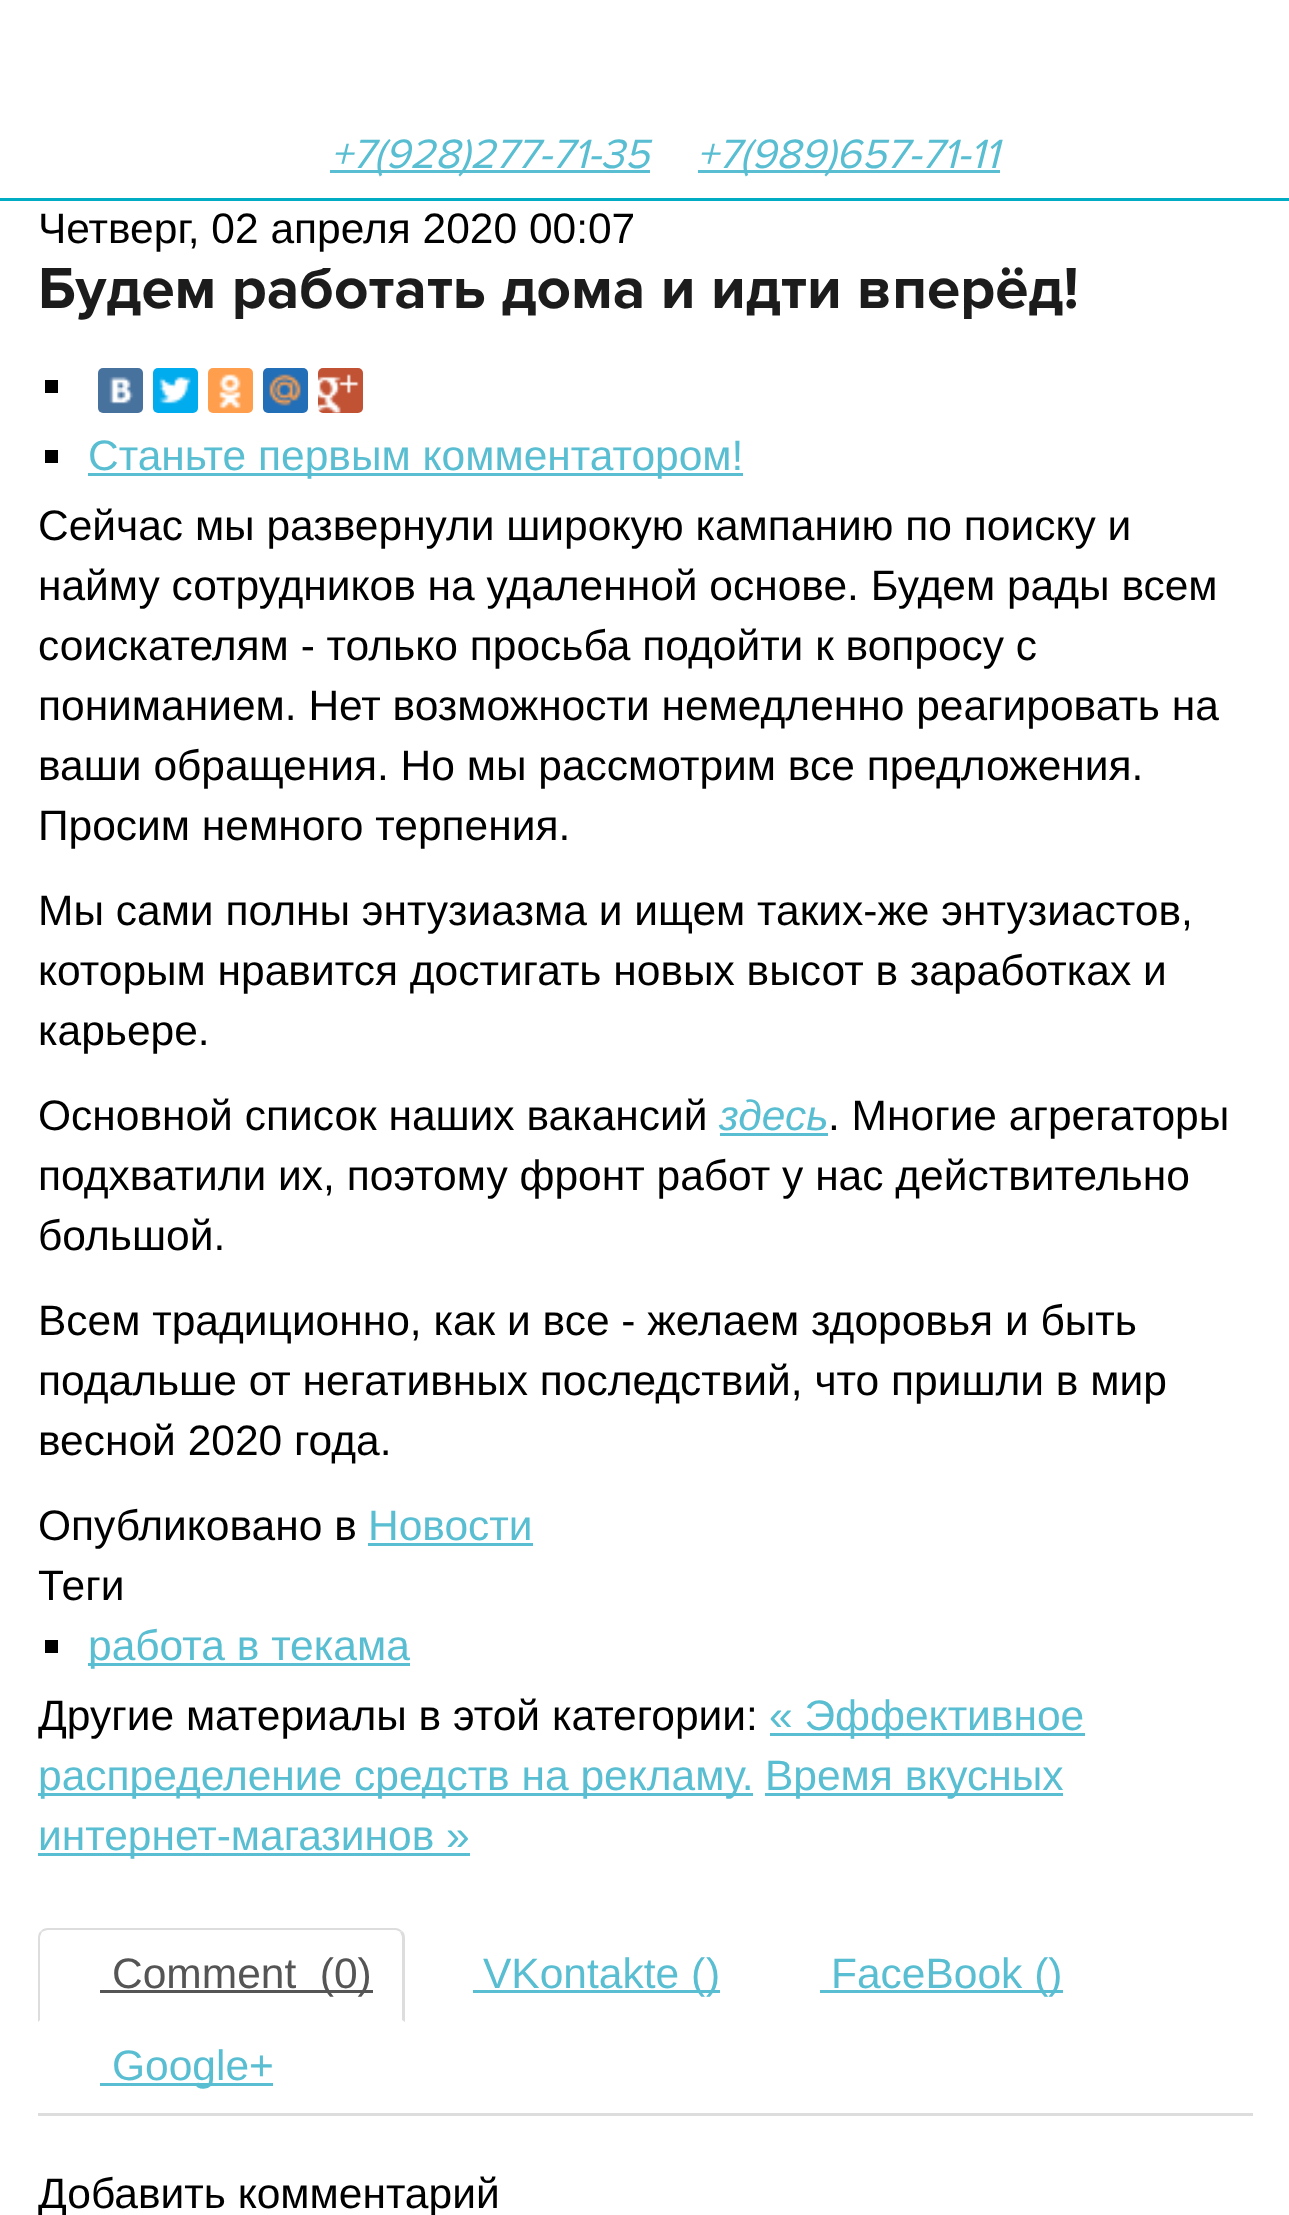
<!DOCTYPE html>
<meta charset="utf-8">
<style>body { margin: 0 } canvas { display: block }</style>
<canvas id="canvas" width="1289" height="2215"></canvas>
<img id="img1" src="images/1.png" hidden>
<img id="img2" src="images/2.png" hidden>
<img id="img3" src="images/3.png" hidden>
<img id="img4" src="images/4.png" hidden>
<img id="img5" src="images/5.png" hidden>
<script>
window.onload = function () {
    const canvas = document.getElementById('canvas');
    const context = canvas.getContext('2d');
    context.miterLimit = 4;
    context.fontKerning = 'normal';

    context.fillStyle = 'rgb(255, 255, 255)';
    context.fillRect(0, 0, 1289, 2215);
    context.fillStyle = 'rgb(0, 171, 196)';
    context.fillRect(0, 198, 1289, 3);
    context.fillStyle = 'rgb(89, 190, 209)';
    context.fillRect(330, 170, 320, 3);
    context.fillRect(698, 170, 302, 3);
    context.fillStyle = 'rgb(0, 0, 0)';
    context.fillRect(45, 380, 13, 13);
    context.fillStyle = 'rgb(72, 114, 158)';
    context.beginPath();
    context.roundRect(98, 368, 45, 45, 5);
    context.fill();
    context.drawImage(document.getElementById('img1'), 109, 376, 25, 28);
    context.fillStyle = 'rgb(0, 172, 237)';
    context.beginPath();
    context.roundRect(153, 368, 45, 45, 5);
    context.fill();
    context.drawImage(document.getElementById('img2'), 159, 376, 32, 28);
    context.fillStyle = 'rgb(255, 159, 77)';
    context.beginPath();
    context.roundRect(208, 368, 45, 45, 5);
    context.fill();
    context.drawImage(document.getElementById('img3'), 219, 374, 22, 35);
    context.fillStyle = 'rgb(34, 110, 183)';
    context.beginPath();
    context.roundRect(263, 368, 45, 45, 5);
    context.fill();
    context.drawImage(document.getElementById('img4'), 269, 374, 32, 32);
    context.fillStyle = 'rgb(194, 82, 52)';
    context.beginPath();
    context.roundRect(318, 368, 45, 45, 5);
    context.fill();
    context.drawImage(document.getElementById('img5'), 318, 374, 41, 39);
    context.fillStyle = 'rgb(0, 0, 0)';
    context.fillRect(45, 450, 13, 13);
    context.fillStyle = 'rgb(89, 190, 209)';
    context.fillRect(88, 473, 655, 3);
    context.fillRect(720, 1133, 108, 3);
    context.fillRect(368, 1543, 165, 3);
    context.fillStyle = 'rgb(0, 0, 0)';
    context.fillRect(45, 1640, 13, 13);
    context.fillStyle = 'rgb(89, 190, 209)';
    context.fillRect(88, 1663, 322, 3);
    context.fillRect(770, 1733, 315, 3);
    context.fillRect(38, 1793, 715, 3);
    context.fillRect(765, 1793, 298, 3);
    context.fillRect(38, 1853, 432, 3);
    context.fillStyle = 'rgb(221, 221, 221)';
    context.fillRect(38, 2113, 1215, 3);
    context.beginPath();
    context.moveTo(48, 1928);
    context.bezierCurveTo(45, 1928, 42, 1929, 41, 1931);
    context.lineTo(42, 1932);
    context.bezierCurveTo(44, 1931, 46, 1930, 48, 1930);
    context.lineTo(395, 1930);
    context.bezierCurveTo(397, 1930, 399, 1931, 400, 1932);
    context.lineTo(402, 1931);
    context.bezierCurveTo(400, 1929, 398, 1928, 395, 1928);
    context.closePath();
    context.fill();
    context.beginPath();
    context.moveTo(402, 1931);
    context.bezierCurveTo(404, 1932, 405, 1935, 405, 1938);
    context.lineTo(405, 2022);
    context.lineTo(402, 2020);
    context.lineTo(402, 1938);
    context.bezierCurveTo(402, 1936, 401, 1934, 400, 1932);
    context.closePath();
    context.fill();
    context.beginPath();
    context.moveTo(41, 1931);
    context.bezierCurveTo(39, 1932, 38, 1935, 38, 1938);
    context.lineTo(38, 2022);
    context.lineTo(40, 2020);
    context.lineTo(40, 1938);
    context.bezierCurveTo(40, 1936, 41, 1934, 42, 1932);
    context.closePath();
    context.fill();
    context.fillStyle = 'rgb(85, 85, 85)';
    context.fillRect(100, 1990, 273, 3);
    context.fillStyle = 'rgb(89, 190, 209)';
    context.fillRect(473, 1990, 232, 3);
    context.fillRect(705, 1990, 15, 3);
    context.fillRect(820, 1990, 243, 3);
    context.fillRect(100, 2083, 173, 3);
    context.font = 'italic 42.5px Proxima Nova';
    context.fillText('+7(928)277-71-35', 331, 168);
    context.fillText('+7(989)657-71-11', 697, 168);
    context.font = '42.5px Liberation Sans';
    context.fillStyle = 'rgb(0, 0, 0)';
    context.fillText('Четверг, 02 апреля 2020 00:07', 38, 243);
    context.font = 'bold 60px Proxima Nova';
    context.fillStyle = 'rgb(28, 28, 28)';
    context.fillText('Будем работать дома и идти вперёд!', 38, 308);
    context.font = '42.5px Liberation Sans';
    context.fillStyle = 'rgb(89, 190, 209)';
    context.fillText('Станьте первым комментатором!', 88, 470);
    context.fillStyle = 'rgb(0, 0, 0)';
    context.fillText('Сейчас мы развернули широкую кампанию по поиску и', 38, 540);
    context.fillText('найму сотрудников на удаленной основе. Будем рады всем', 38, 600);
    context.fillText('соискателям - только просьба подойти к вопросу с', 38, 660);
    context.fillText('пониманием. Нет возможности немедленно реагировать на', 38, 720);
    context.fillText('ваши обращения. Но мы рассмотрим все предложения.', 38, 780);
    context.fillText('Просим немного терпения.', 38, 840);
    context.fillText('Мы сами полны энтузиазма и ищем таких-же энтузиастов,', 38, 925);
    context.fillText('которым нравится достигать новых высот в заработках и', 38, 985);
    context.fillText('карьере.', 38, 1045);
    context.fillText('Основной список наших вакансий', 38, 1130);
    context.font = 'italic 42.5px Liberation Sans';
    context.fillStyle = 'rgb(89, 190, 209)';
    context.fillText('здесь', 719, 1130);
    context.font = '42.5px Liberation Sans';
    context.fillStyle = 'rgb(0, 0, 0)';
    context.fillText('. Многие агрегаторы', 828, 1130);
    context.fillText('подхватили их, поэтому фронт работ у нас действительно', 38, 1190);
    context.fillText('большой.', 38, 1250);
    context.fillText('Всем традиционно, как и все - желаем здоровья и быть', 38, 1335);
    context.fillText('подальше от негативных последствий, что пришли в мир', 38, 1395);
    context.fillText('весной 2020 года.', 38, 1455);
    context.fillText('Опубликовано в', 38, 1540);
    context.fillStyle = 'rgb(89, 190, 209)';
    context.fillText('Новости', 368, 1540);
    context.fillStyle = 'rgb(0, 0, 0)';
    context.fillText('Теги', 38, 1600);
    context.fillStyle = 'rgb(89, 190, 209)';
    context.fillText('работа в текама', 88, 1660);
    context.fillStyle = 'rgb(0, 0, 0)';
    context.fillText('Другие материалы в этой категории:', 38, 1730);
    context.fillStyle = 'rgb(89, 190, 209)';
    context.fillText('« Эффективное', 769, 1730);
    context.fillText('распределение средств на рекламу.', 38, 1790);
    context.fillText('Время вкусных', 765, 1790);
    context.fillText('интернет-магазинов »', 38, 1850);
    context.fillStyle = 'rgb(85, 85, 85)';
    context.fillText('Comment  (0)', 112, 1988);
    context.fillStyle = 'rgb(89, 190, 209)';
    context.fillText('VKontakte (', 483, 1988);
    context.fillText(')', 706, 1988);
    context.fillText('FaceBook ()', 831, 1988);
    context.fillText('Google+', 112, 2080);
    context.fillStyle = 'rgb(0, 0, 0)';
    context.fillText('Добавить комментарий', 38, 2208);
};
</script>
